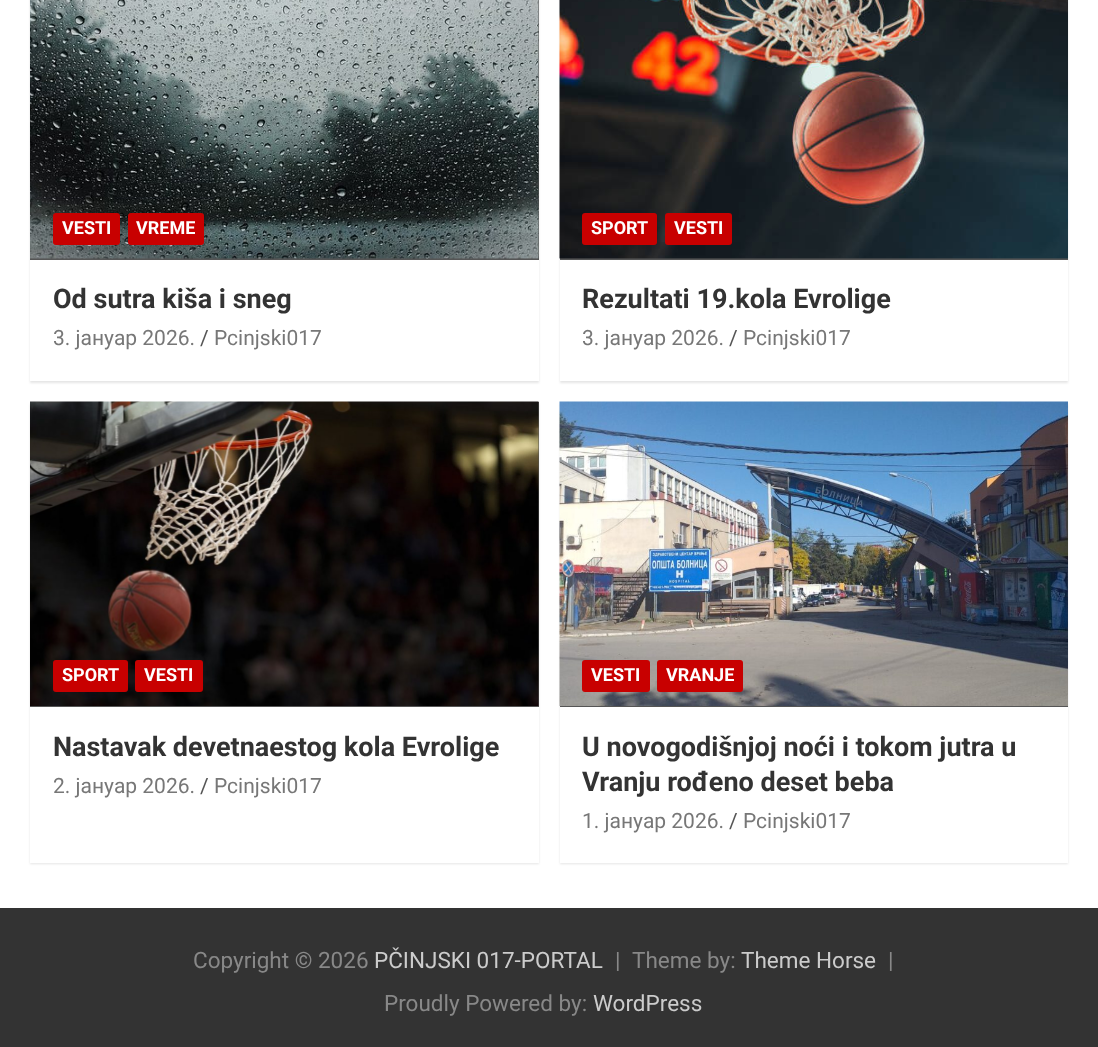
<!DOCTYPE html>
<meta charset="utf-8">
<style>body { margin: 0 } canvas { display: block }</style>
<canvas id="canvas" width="1098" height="1047"></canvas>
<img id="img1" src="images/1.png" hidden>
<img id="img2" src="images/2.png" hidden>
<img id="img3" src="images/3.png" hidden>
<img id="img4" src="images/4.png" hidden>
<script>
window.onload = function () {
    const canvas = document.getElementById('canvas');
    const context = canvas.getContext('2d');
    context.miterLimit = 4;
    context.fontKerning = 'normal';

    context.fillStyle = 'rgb(255, 255, 255)';
    context.fillRect(0, 0, 1098, 1047);
    context.fillStyle = 'rgba(0, 0, 0, 0.1)';
    context.filter = 'blur(1px)';
    context.beginPath();
    context.rect(30, -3, 509, 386);
    context.fill();
    context.filter = 'none';
    context.fillStyle = 'rgb(255, 255, 255)';
    context.fillRect(30, 260, 509, 121);
    context.fillStyle = 'rgb(85, 85, 85)';
    context.fillRect(30, 0, 509, 260);
    context.drawImage(document.getElementById('img1'), 30, 0, 509, 259);
    context.fillStyle = 'rgb(200, 0, 0)';
    context.beginPath();
    context.roundRect(53, 213, 67, 32, 3);
    context.fill();
    context.beginPath();
    context.roundRect(128, 213, 76, 32, 3);
    context.fill();
    context.save();
    context.beginPath();
    context.moveTo(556, 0);
    context.lineTo(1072, 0);
    context.lineTo(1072, 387);
    context.lineTo(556, 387);
    context.closePath();
    context.moveTo(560, -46);
    context.lineTo(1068, -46);
    context.lineTo(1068, 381);
    context.lineTo(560, 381);
    context.closePath();
    context.clip('evenodd');
    context.fillStyle = 'rgba(0, 0, 0, 0.1)';
    context.filter = 'blur(1px)';
    context.beginPath();
    context.rect(560, -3, 508, 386);
    context.fill();
    context.filter = 'none';
    context.restore();
    context.fillStyle = 'rgb(85, 85, 85)';
    context.fillRect(560, 258, 508, 2);
    context.drawImage(document.getElementById('img2'), 559, 0, 509, 259);
    context.fillStyle = 'rgb(200, 0, 0)';
    context.beginPath();
    context.roundRect(582, 213, 75, 32, 3);
    context.fill();
    context.beginPath();
    context.roundRect(665, 213, 67, 32, 3);
    context.fill();
    context.fillStyle = 'rgba(0, 0, 0, 0.1)';
    context.filter = 'blur(1px)';
    context.beginPath();
    context.rect(30, 404, 509, 460);
    context.fill();
    context.filter = 'none';
    context.fillStyle = 'rgb(255, 255, 255)';
    context.fillRect(30, 707, 509, 156);
    context.fillStyle = 'rgb(85, 85, 85)';
    context.fillRect(30, 402, 509, 305);
    context.drawImage(document.getElementById('img3'), 30, 401, 509, 305);
    context.fillStyle = 'rgb(200, 0, 0)';
    context.beginPath();
    context.roundRect(53, 660, 75, 32, 3);
    context.fill();
    context.beginPath();
    context.roundRect(135, 660, 68, 32, 3);
    context.fill();
    context.fillStyle = 'rgba(0, 0, 0, 0.1)';
    context.filter = 'blur(1px)';
    context.beginPath();
    context.rect(560, 404, 508, 460);
    context.fill();
    context.filter = 'none';
    context.fillStyle = 'rgb(255, 255, 255)';
    context.fillRect(560, 707, 508, 156);
    context.fillStyle = 'rgb(85, 85, 85)';
    context.fillRect(560, 706, 508, 1);
    context.drawImage(document.getElementById('img4'), 559, 401, 509, 305);
    context.fillStyle = 'rgb(200, 0, 0)';
    context.beginPath();
    context.roundRect(582, 660, 68, 32, 3);
    context.fill();
    context.beginPath();
    context.roundRect(657, 660, 86, 32, 3);
    context.fill();
    context.fillStyle = 'rgb(51, 51, 51)';
    context.fillRect(0, 908, 1098, 139);
    context.font = 'bold 18px Roboto';
    context.fillStyle = 'rgb(255, 255, 255)';
    context.fillText('VESTI', 62, 234);
    context.fillText('VREME', 136, 234);
    context.font = 'bold 27px Roboto';
    context.fillStyle = 'rgb(51, 51, 51)';
    context.fillText('Od sutra kiša i sneg', 53, 308);
    context.font = '21px Roboto';
    context.fillStyle = 'rgb(119, 119, 119)';
    context.fillText('3. јануар 2026.', 53, 345);
    context.fillStyle = 'rgb(85, 85, 85)';
    context.fillText('/', 200, 345);
    context.fillStyle = 'rgb(119, 119, 119)';
    context.fillText('Pcinjski017', 214, 345);
    context.font = 'bold 18px Roboto';
    context.fillStyle = 'rgb(255, 255, 255)';
    context.fillText('SPORT', 591, 234);
    context.fillText('VESTI', 674, 234);
    context.font = 'bold 27px Roboto';
    context.fillStyle = 'rgb(51, 51, 51)';
    context.fillText('Rezultati 19.kola Evrolige', 582, 308);
    context.font = '21px Roboto';
    context.fillStyle = 'rgb(119, 119, 119)';
    context.fillText('3. јануар 2026.', 582, 345);
    context.fillStyle = 'rgb(85, 85, 85)';
    context.fillText('/', 729, 345);
    context.fillStyle = 'rgb(119, 119, 119)';
    context.fillText('Pcinjski017', 743, 345);
    context.font = 'bold 18px Roboto';
    context.fillStyle = 'rgb(255, 255, 255)';
    context.fillText('SPORT', 62, 681);
    context.fillText('VESTI', 144, 681);
    context.font = 'bold 27px Roboto';
    context.fillStyle = 'rgb(51, 51, 51)';
    context.fillText('Nastavak devetnaestog kola Evrolige', 53, 756);
    context.font = '21px Roboto';
    context.fillStyle = 'rgb(119, 119, 119)';
    context.fillText('2. јануар 2026.', 53, 793);
    context.fillStyle = 'rgb(85, 85, 85)';
    context.fillText('/', 200, 793);
    context.fillStyle = 'rgb(119, 119, 119)';
    context.fillText('Pcinjski017', 214, 793);
    context.font = 'bold 18px Roboto';
    context.fillStyle = 'rgb(255, 255, 255)';
    context.fillText('VESTI', 591, 681);
    context.fillText('VRANJE', 666, 681);
    context.font = 'bold 27px Roboto';
    context.fillStyle = 'rgb(51, 51, 51)';
    context.fillText('U novogodišnjoj noći i tokom jutra u', 582, 756);
    context.fillText('Vranju rođeno deset beba', 582, 791);
    context.font = '21px Roboto';
    context.fillStyle = 'rgb(119, 119, 119)';
    context.fillText('1. јануар 2026.', 582, 828);
    context.fillStyle = 'rgb(85, 85, 85)';
    context.fillText('/', 729, 828);
    context.fillStyle = 'rgb(119, 119, 119)';
    context.fillText('Pcinjski017', 743, 828);
    context.font = '22.5px Roboto';
    context.fillStyle = 'rgb(136, 136, 136)';
    context.fillText('Copyright © 2026', 193, 968);
    context.fillStyle = 'rgb(204, 204, 204)';
    context.fillText('PČINJSKI 017-PORTAL', 374, 968);
    context.fillStyle = 'rgb(136, 136, 136)';
    context.fillText('|', 615, 968);
    context.fillText('Theme by:', 632, 968);
    context.fillStyle = 'rgb(204, 204, 204)';
    context.fillText('Theme Horse', 741, 968);
    context.fillStyle = 'rgb(136, 136, 136)';
    context.fillText('|', 888, 968);
    context.fillText('Proudly Powered by:', 384, 1011);
    context.fillStyle = 'rgb(204, 204, 204)';
    context.fillText('WordPress', 593, 1011);
};
</script>
